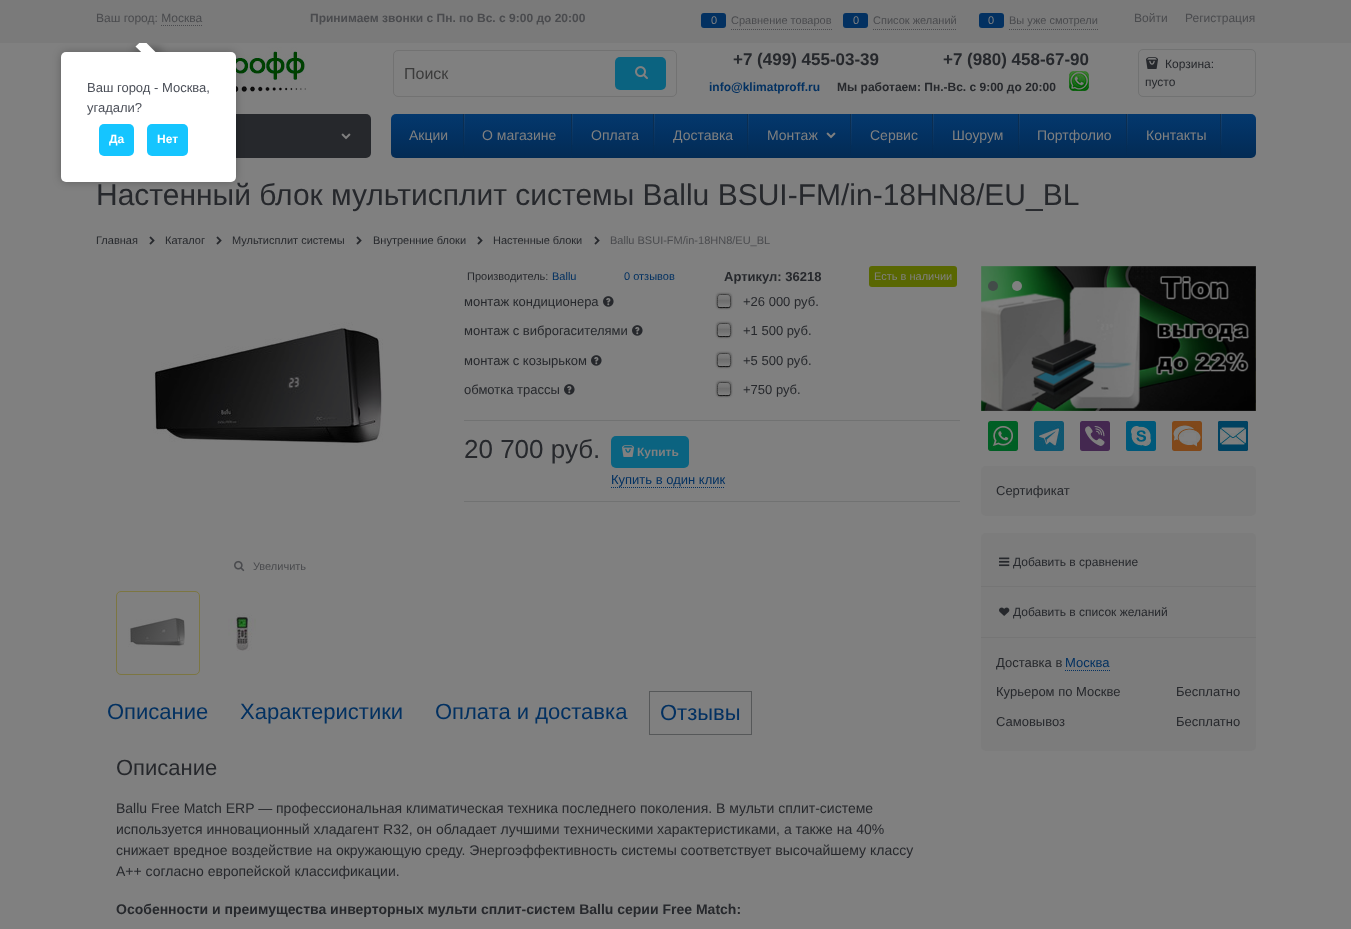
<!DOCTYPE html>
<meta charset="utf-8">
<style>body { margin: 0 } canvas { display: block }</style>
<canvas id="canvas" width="1351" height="929"></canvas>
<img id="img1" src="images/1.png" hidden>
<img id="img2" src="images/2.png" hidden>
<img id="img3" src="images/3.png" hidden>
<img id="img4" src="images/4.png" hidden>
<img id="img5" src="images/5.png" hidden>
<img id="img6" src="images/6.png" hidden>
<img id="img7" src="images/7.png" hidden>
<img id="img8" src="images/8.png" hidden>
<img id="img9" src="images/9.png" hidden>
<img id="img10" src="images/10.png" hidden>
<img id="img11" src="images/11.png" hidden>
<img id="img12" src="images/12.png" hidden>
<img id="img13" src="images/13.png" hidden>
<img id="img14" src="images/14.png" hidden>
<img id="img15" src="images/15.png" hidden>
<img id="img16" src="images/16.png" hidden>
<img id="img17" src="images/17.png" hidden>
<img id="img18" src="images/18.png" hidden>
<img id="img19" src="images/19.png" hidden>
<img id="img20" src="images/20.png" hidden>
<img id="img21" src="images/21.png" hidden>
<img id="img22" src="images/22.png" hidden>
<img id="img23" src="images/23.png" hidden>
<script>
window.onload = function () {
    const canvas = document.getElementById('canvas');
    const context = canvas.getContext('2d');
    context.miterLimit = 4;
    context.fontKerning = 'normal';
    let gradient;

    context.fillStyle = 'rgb(128, 128, 128)';
    context.fillRect(0, 0, 1351, 929);
    context.fillStyle = 'rgb(122, 122, 122)';
    context.fillRect(0, 0, 1351, 43);
    context.beginPath();
    context.moveTo(161, 25.5);
    context.lineTo(202, 25.5);
    context.strokeStyle = 'rgb(74, 75, 78)';
    context.setLineDash([1, 1]);
    context.stroke();
    context.beginPath();
    context.moveTo(731, 29.5);
    context.lineTo(832, 29.5);
    context.stroke();
    context.fillStyle = 'rgb(3, 49, 97)';
    context.beginPath();
    context.roundRect(701, 13, 25, 15, 3);
    context.fill();
    context.beginPath();
    context.moveTo(873, 29.5);
    context.lineTo(957, 29.5);
    context.stroke();
    context.beginPath();
    context.roundRect(843, 13, 25, 15, 3);
    context.fill();
    context.beginPath();
    context.moveTo(1009, 29.5);
    context.lineTo(1098, 29.5);
    context.stroke();
    context.beginPath();
    context.roundRect(979, 13, 25, 15, 3);
    context.fill();
    context.drawImage(document.getElementById('img1'), 106, 47, 200, 46);
    context.beginPath();
    context.roundRect(393.5, 50.5, 283, 46, 4.5);
    context.strokeStyle = 'rgb(114, 114, 114)';
    context.setLineDash([]);
    context.stroke();
    context.fillStyle = 'rgb(11, 99, 128)';
    context.beginPath();
    context.roundRect(615, 57, 51, 33, 5);
    context.fill();
    context.drawImage(document.getElementById('img2'), 635, 66, 13, 14);
    context.drawImage(document.getElementById('img3'), 1069, 71, 20, 20);
    context.beginPath();
    context.roundRect(1138.5, 49.5, 117, 47, 4.5);
    context.strokeStyle = 'rgb(113, 114, 114)';
    context.stroke();
    context.drawImage(document.getElementById('img4'), 1146, 57, 12, 12);
    context.fillStyle = 'rgb(38, 40, 44)';
    context.beginPath();
    context.roundRect(96, 114, 275, 44, 5);
    context.fill();
    context.drawImage(document.getElementById('img5'), 341, 133, 10, 7);
    gradient = context.createLinearGradient(824, 114, 824, 158);
    gradient.addColorStop(0, 'rgb(4, 56, 109)');
    gradient.addColorStop(0.5, 'rgb(3, 49, 97)');
    gradient.addColorStop(1, 'rgb(3, 43, 84)');
    context.fillStyle = gradient;
    context.beginPath();
    context.roundRect(391, 114, 865, 44, 5);
    context.fill();
    gradient = context.createLinearGradient(465, 114, 465, 158);
    gradient.addColorStop(0, 'rgba(128, 128, 128, 0.14)');
    gradient.addColorStop(0.72, 'rgba(128, 128, 128, 0.02)');
    gradient.addColorStop(1, 'rgba(128, 128, 128, 0)');
    context.fillStyle = gradient;
    context.fillRect(464, 114, 1, 31);
    gradient = context.createLinearGradient(464, 114, 464, 158);
    gradient.addColorStop(0, 'rgba(29, 29, 29, 0.39)');
    gradient.addColorStop(0.17, 'rgba(29, 29, 29, 0.33)');
    gradient.addColorStop(0.61, 'rgba(29, 29, 29, 0.12)');
    gradient.addColorStop(0.96, 'rgba(29, 29, 29, 0.01)');
    gradient.addColorStop(0.98, 'rgba(128, 128, 128, 0.01)');
    gradient.addColorStop(1, 'rgba(128, 128, 128, 0)');
    context.fillStyle = gradient;
    context.fillRect(463, 114, 1, 44);
    gradient = context.createLinearGradient(573, 114, 573, 158);
    gradient.addColorStop(0, 'rgba(128, 128, 128, 0.14)');
    gradient.addColorStop(0.72, 'rgba(128, 128, 128, 0.02)');
    gradient.addColorStop(1, 'rgba(128, 128, 128, 0)');
    context.fillStyle = gradient;
    context.fillRect(572, 114, 1, 31);
    gradient = context.createLinearGradient(572, 114, 572, 158);
    gradient.addColorStop(0, 'rgba(29, 29, 29, 0.39)');
    gradient.addColorStop(0.17, 'rgba(29, 29, 29, 0.33)');
    gradient.addColorStop(0.61, 'rgba(29, 29, 29, 0.12)');
    gradient.addColorStop(0.96, 'rgba(29, 29, 29, 0.01)');
    gradient.addColorStop(0.98, 'rgba(128, 128, 128, 0.01)');
    gradient.addColorStop(1, 'rgba(128, 128, 128, 0)');
    context.fillStyle = gradient;
    context.fillRect(571, 114, 1, 44);
    gradient = context.createLinearGradient(655, 114, 655, 158);
    gradient.addColorStop(0, 'rgba(128, 128, 128, 0.14)');
    gradient.addColorStop(0.72, 'rgba(128, 128, 128, 0.02)');
    gradient.addColorStop(1, 'rgba(128, 128, 128, 0)');
    context.fillStyle = gradient;
    context.fillRect(654, 114, 1, 31);
    gradient = context.createLinearGradient(654, 114, 654, 158);
    gradient.addColorStop(0, 'rgba(29, 29, 29, 0.39)');
    gradient.addColorStop(0.17, 'rgba(29, 29, 29, 0.33)');
    gradient.addColorStop(0.61, 'rgba(29, 29, 29, 0.12)');
    gradient.addColorStop(0.96, 'rgba(29, 29, 29, 0.01)');
    gradient.addColorStop(0.98, 'rgba(128, 128, 128, 0.01)');
    gradient.addColorStop(1, 'rgba(128, 128, 128, 0)');
    context.fillStyle = gradient;
    context.fillRect(653, 114, 1, 44);
    gradient = context.createLinearGradient(749, 114, 749, 158);
    gradient.addColorStop(0, 'rgba(128, 128, 128, 0.14)');
    gradient.addColorStop(0.72, 'rgba(128, 128, 128, 0.02)');
    gradient.addColorStop(1, 'rgba(128, 128, 128, 0)');
    context.fillStyle = gradient;
    context.fillRect(748, 114, 1, 31);
    gradient = context.createLinearGradient(748, 114, 748, 158);
    gradient.addColorStop(0, 'rgba(29, 29, 29, 0.39)');
    gradient.addColorStop(0.17, 'rgba(29, 29, 29, 0.33)');
    gradient.addColorStop(0.61, 'rgba(29, 29, 29, 0.12)');
    gradient.addColorStop(0.96, 'rgba(29, 29, 29, 0.01)');
    gradient.addColorStop(0.98, 'rgba(128, 128, 128, 0.01)');
    gradient.addColorStop(1, 'rgba(128, 128, 128, 0)');
    context.fillStyle = gradient;
    context.fillRect(747, 114, 1, 44);
    context.drawImage(document.getElementById('img6'), 826, 132, 10, 7);
    gradient = context.createLinearGradient(852, 114, 852, 158);
    gradient.addColorStop(0, 'rgba(128, 128, 128, 0.14)');
    gradient.addColorStop(0.72, 'rgba(128, 128, 128, 0.02)');
    gradient.addColorStop(1, 'rgba(128, 128, 128, 0)');
    context.fillStyle = gradient;
    context.fillRect(851, 114, 1, 31);
    gradient = context.createLinearGradient(851, 114, 851, 158);
    gradient.addColorStop(0, 'rgba(29, 29, 29, 0.39)');
    gradient.addColorStop(0.17, 'rgba(29, 29, 29, 0.33)');
    gradient.addColorStop(0.61, 'rgba(29, 29, 29, 0.12)');
    gradient.addColorStop(0.96, 'rgba(29, 29, 29, 0.01)');
    gradient.addColorStop(0.98, 'rgba(128, 128, 128, 0.01)');
    gradient.addColorStop(1, 'rgba(128, 128, 128, 0)');
    context.fillStyle = gradient;
    context.fillRect(850, 114, 1, 44);
    gradient = context.createLinearGradient(934, 114, 934, 158);
    gradient.addColorStop(0, 'rgba(128, 128, 128, 0.14)');
    gradient.addColorStop(0.72, 'rgba(128, 128, 128, 0.02)');
    gradient.addColorStop(1, 'rgba(128, 128, 128, 0)');
    context.fillStyle = gradient;
    context.fillRect(933, 114, 1, 31);
    gradient = context.createLinearGradient(933, 114, 933, 158);
    gradient.addColorStop(0, 'rgba(29, 29, 29, 0.39)');
    gradient.addColorStop(0.17, 'rgba(29, 29, 29, 0.33)');
    gradient.addColorStop(0.61, 'rgba(29, 29, 29, 0.12)');
    gradient.addColorStop(0.96, 'rgba(29, 29, 29, 0.01)');
    gradient.addColorStop(0.98, 'rgba(128, 128, 128, 0.01)');
    gradient.addColorStop(1, 'rgba(128, 128, 128, 0)');
    context.fillStyle = gradient;
    context.fillRect(932, 114, 1, 44);
    gradient = context.createLinearGradient(1020, 114, 1020, 158);
    gradient.addColorStop(0, 'rgba(128, 128, 128, 0.14)');
    gradient.addColorStop(0.72, 'rgba(128, 128, 128, 0.02)');
    gradient.addColorStop(1, 'rgba(128, 128, 128, 0)');
    context.fillStyle = gradient;
    context.fillRect(1019, 114, 1, 31);
    gradient = context.createLinearGradient(1019, 114, 1019, 158);
    gradient.addColorStop(0, 'rgba(29, 29, 29, 0.39)');
    gradient.addColorStop(0.17, 'rgba(29, 29, 29, 0.33)');
    gradient.addColorStop(0.61, 'rgba(29, 29, 29, 0.12)');
    gradient.addColorStop(0.96, 'rgba(29, 29, 29, 0.01)');
    gradient.addColorStop(0.98, 'rgba(128, 128, 128, 0.01)');
    gradient.addColorStop(1, 'rgba(128, 128, 128, 0)');
    context.fillStyle = gradient;
    context.fillRect(1018, 114, 1, 44);
    gradient = context.createLinearGradient(1128, 114, 1128, 158);
    gradient.addColorStop(0, 'rgba(128, 128, 128, 0.14)');
    gradient.addColorStop(0.72, 'rgba(128, 128, 128, 0.02)');
    gradient.addColorStop(1, 'rgba(128, 128, 128, 0)');
    context.fillStyle = gradient;
    context.fillRect(1127, 114, 1, 31);
    gradient = context.createLinearGradient(1127, 114, 1127, 158);
    gradient.addColorStop(0, 'rgba(29, 29, 29, 0.39)');
    gradient.addColorStop(0.17, 'rgba(29, 29, 29, 0.33)');
    gradient.addColorStop(0.61, 'rgba(29, 29, 29, 0.12)');
    gradient.addColorStop(0.96, 'rgba(29, 29, 29, 0.01)');
    gradient.addColorStop(0.98, 'rgba(128, 128, 128, 0.01)');
    gradient.addColorStop(1, 'rgba(128, 128, 128, 0)');
    context.fillStyle = gradient;
    context.fillRect(1126, 114, 1, 44);
    gradient = context.createLinearGradient(1222, 114, 1222, 158);
    gradient.addColorStop(0, 'rgba(128, 128, 128, 0.14)');
    gradient.addColorStop(0.72, 'rgba(128, 128, 128, 0.02)');
    gradient.addColorStop(1, 'rgba(128, 128, 128, 0)');
    context.fillStyle = gradient;
    context.fillRect(1221, 114, 1, 31);
    gradient = context.createLinearGradient(1221, 114, 1221, 158);
    gradient.addColorStop(0, 'rgba(29, 29, 29, 0.39)');
    gradient.addColorStop(0.17, 'rgba(29, 29, 29, 0.33)');
    gradient.addColorStop(0.61, 'rgba(29, 29, 29, 0.12)');
    gradient.addColorStop(0.96, 'rgba(29, 29, 29, 0.01)');
    gradient.addColorStop(0.98, 'rgba(128, 128, 128, 0.01)');
    gradient.addColorStop(1, 'rgba(128, 128, 128, 0)');
    context.fillStyle = gradient;
    context.fillRect(1220, 114, 1, 44);
    context.drawImage(document.getElementById('img7'), 149, 236, 6, 9);
    context.drawImage(document.getElementById('img7'), 216, 236, 6, 9);
    context.drawImage(document.getElementById('img7'), 356, 236, 6, 9);
    context.drawImage(document.getElementById('img7'), 477, 236, 6, 9);
    context.drawImage(document.getElementById('img7'), 594, 236, 6, 9);
    context.fillStyle = 'rgb(89, 103, 2)';
    context.beginPath();
    context.roundRect(869, 266, 88, 21, 3);
    context.fill();
    context.drawImage(document.getElementById('img8'), 603, 296, 11, 11);
    context.fillStyle = 'rgb(65, 65, 65)';
    context.filter = 'blur(1px)';
    context.beginPath();
    context.roundRect(717, 294, 14, 14, 3);
    context.fill();
    context.filter = 'none';
    context.save();
    context.beginPath();
    context.roundRect(717, 294, 14, 14, 3);
    context.clip();
    gradient = context.createLinearGradient(724, 283, 724, 295);
    gradient.addColorStop(0, 'rgb(127, 127, 127)');
    gradient.addColorStop(0.11, 'rgb(122, 122, 122)');
    gradient.addColorStop(0.33, 'rgb(118, 118, 118)');
    gradient.addColorStop(0.44, 'rgb(110, 110, 110)');
    gradient.addColorStop(0.67, 'rgb(115, 115, 115)');
    gradient.addColorStop(0.78, 'rgb(120, 120, 120)');
    gradient.addColorStop(0.89, 'rgb(123, 123, 123)');
    gradient.addColorStop(1, 'rgb(128, 128, 128)');
    context.fillStyle = gradient;
    context.fillRect(717, 294, 14, 1);
    gradient = context.createLinearGradient(724, 295, 724, 307);
    gradient.addColorStop(0, 'rgb(127, 127, 127)');
    gradient.addColorStop(0.11, 'rgb(122, 122, 122)');
    gradient.addColorStop(0.33, 'rgb(118, 118, 118)');
    gradient.addColorStop(0.44, 'rgb(110, 110, 110)');
    gradient.addColorStop(0.67, 'rgb(115, 115, 115)');
    gradient.addColorStop(0.78, 'rgb(120, 120, 120)');
    gradient.addColorStop(0.89, 'rgb(123, 123, 123)');
    gradient.addColorStop(1, 'rgb(128, 128, 128)');
    context.fillStyle = gradient;
    context.fillRect(717, 295, 14, 12);
    context.restore();
    context.beginPath();
    context.moveTo(730, 307);
    context.bezierCurveTo(728.5, 308, 725.5, 307.5, 724, 307.5);
    context.bezierCurveTo(722.5, 307.5, 719.5, 308, 718, 307);
    context.strokeStyle = 'rgb(23, 23, 23)';
    context.stroke();
    context.beginPath();
    context.moveTo(718, 307);
    context.bezierCurveTo(717, 305.5, 717.5, 301.5, 717.5, 299.5);
    context.bezierCurveTo(717.5, 294, 718.5, 294.5, 724, 294.5);
    context.bezierCurveTo(730.5, 294.5, 730.5, 294.5, 730.5, 301);
    context.bezierCurveTo(730.5, 302.5, 731, 305.5, 730, 307);
    context.strokeStyle = 'rgb(65, 65, 65)';
    context.stroke();
    context.drawImage(document.getElementById('img8'), 632, 325, 11, 11);
    context.filter = 'blur(1px)';
    context.beginPath();
    context.roundRect(717, 323, 14, 14, 3);
    context.fill();
    context.filter = 'none';
    context.save();
    context.beginPath();
    context.roundRect(717, 323, 14, 14, 3);
    context.clip();
    gradient = context.createLinearGradient(724, 312, 724, 324);
    gradient.addColorStop(0, 'rgb(127, 127, 127)');
    gradient.addColorStop(0.11, 'rgb(122, 122, 122)');
    gradient.addColorStop(0.33, 'rgb(118, 118, 118)');
    gradient.addColorStop(0.44, 'rgb(110, 110, 110)');
    gradient.addColorStop(0.67, 'rgb(115, 115, 115)');
    gradient.addColorStop(0.78, 'rgb(120, 120, 120)');
    gradient.addColorStop(0.89, 'rgb(123, 123, 123)');
    gradient.addColorStop(1, 'rgb(128, 128, 128)');
    context.fillStyle = gradient;
    context.fillRect(717, 323, 14, 1);
    gradient = context.createLinearGradient(724, 324, 724, 336);
    gradient.addColorStop(0, 'rgb(127, 127, 127)');
    gradient.addColorStop(0.11, 'rgb(122, 122, 122)');
    gradient.addColorStop(0.33, 'rgb(118, 118, 118)');
    gradient.addColorStop(0.44, 'rgb(110, 110, 110)');
    gradient.addColorStop(0.67, 'rgb(115, 115, 115)');
    gradient.addColorStop(0.78, 'rgb(120, 120, 120)');
    gradient.addColorStop(0.89, 'rgb(123, 123, 123)');
    gradient.addColorStop(1, 'rgb(128, 128, 128)');
    context.fillStyle = gradient;
    context.fillRect(717, 324, 14, 12);
    context.restore();
    context.beginPath();
    context.moveTo(730, 336);
    context.bezierCurveTo(728.5, 337, 725.5, 336.5, 724, 336.5);
    context.bezierCurveTo(722.5, 336.5, 719.5, 337, 718, 336);
    context.strokeStyle = 'rgb(23, 23, 23)';
    context.stroke();
    context.beginPath();
    context.moveTo(718, 336);
    context.bezierCurveTo(717, 334.5, 717.5, 331.5, 717.5, 330);
    context.bezierCurveTo(717.5, 323.5, 717.5, 323.5, 724, 323.5);
    context.bezierCurveTo(729.5, 323.5, 730.5, 323, 730.5, 328.5);
    context.bezierCurveTo(730.5, 330.5, 731, 334.5, 730, 336);
    context.strokeStyle = 'rgb(65, 65, 65)';
    context.stroke();
    context.drawImage(document.getElementById('img8'), 591, 355, 11, 11);
    context.filter = 'blur(1px)';
    context.beginPath();
    context.roundRect(717, 353, 14, 14, 3);
    context.fill();
    context.filter = 'none';
    context.save();
    context.beginPath();
    context.roundRect(717, 353, 14, 14, 3);
    context.clip();
    gradient = context.createLinearGradient(724, 342, 724, 354);
    gradient.addColorStop(0, 'rgb(127, 127, 127)');
    gradient.addColorStop(0.11, 'rgb(122, 122, 122)');
    gradient.addColorStop(0.33, 'rgb(118, 118, 118)');
    gradient.addColorStop(0.44, 'rgb(110, 110, 110)');
    gradient.addColorStop(0.67, 'rgb(115, 115, 115)');
    gradient.addColorStop(0.78, 'rgb(120, 120, 120)');
    gradient.addColorStop(0.89, 'rgb(123, 123, 123)');
    gradient.addColorStop(1, 'rgb(128, 128, 128)');
    context.fillStyle = gradient;
    context.fillRect(717, 353, 14, 1);
    gradient = context.createLinearGradient(724, 354, 724, 366);
    gradient.addColorStop(0, 'rgb(127, 127, 127)');
    gradient.addColorStop(0.11, 'rgb(122, 122, 122)');
    gradient.addColorStop(0.33, 'rgb(118, 118, 118)');
    gradient.addColorStop(0.44, 'rgb(110, 110, 110)');
    gradient.addColorStop(0.67, 'rgb(115, 115, 115)');
    gradient.addColorStop(0.78, 'rgb(120, 120, 120)');
    gradient.addColorStop(0.89, 'rgb(123, 123, 123)');
    gradient.addColorStop(1, 'rgb(128, 128, 128)');
    context.fillStyle = gradient;
    context.fillRect(717, 354, 14, 12);
    context.restore();
    context.beginPath();
    context.moveTo(730, 366);
    context.bezierCurveTo(728.5, 367, 725.5, 366.5, 724, 366.5);
    context.bezierCurveTo(722.5, 366.5, 719.5, 367, 718, 366);
    context.strokeStyle = 'rgb(23, 23, 23)';
    context.stroke();
    context.beginPath();
    context.moveTo(718, 366);
    context.bezierCurveTo(717, 364.5, 717.5, 361.5, 717.5, 360);
    context.bezierCurveTo(717.5, 353.5, 717.5, 353.5, 724, 353.5);
    context.bezierCurveTo(729.5, 353.5, 730.5, 353, 730.5, 358.5);
    context.bezierCurveTo(730.5, 360.5, 731, 364.5, 730, 366);
    context.strokeStyle = 'rgb(65, 65, 65)';
    context.stroke();
    context.drawImage(document.getElementById('img8'), 564, 384, 11, 11);
    context.filter = 'blur(1px)';
    context.beginPath();
    context.roundRect(717, 382, 14, 14, 3);
    context.fill();
    context.filter = 'none';
    context.save();
    context.beginPath();
    context.roundRect(717, 382, 14, 14, 3);
    context.clip();
    gradient = context.createLinearGradient(724, 371, 724, 383);
    gradient.addColorStop(0, 'rgb(127, 127, 127)');
    gradient.addColorStop(0.11, 'rgb(122, 122, 122)');
    gradient.addColorStop(0.33, 'rgb(118, 118, 118)');
    gradient.addColorStop(0.44, 'rgb(110, 110, 110)');
    gradient.addColorStop(0.67, 'rgb(115, 115, 115)');
    gradient.addColorStop(0.78, 'rgb(120, 120, 120)');
    gradient.addColorStop(0.89, 'rgb(123, 123, 123)');
    gradient.addColorStop(1, 'rgb(128, 128, 128)');
    context.fillStyle = gradient;
    context.fillRect(717, 382, 14, 1);
    gradient = context.createLinearGradient(724, 383, 724, 395);
    gradient.addColorStop(0, 'rgb(127, 127, 127)');
    gradient.addColorStop(0.11, 'rgb(122, 122, 122)');
    gradient.addColorStop(0.33, 'rgb(118, 118, 118)');
    gradient.addColorStop(0.44, 'rgb(110, 110, 110)');
    gradient.addColorStop(0.67, 'rgb(115, 115, 115)');
    gradient.addColorStop(0.78, 'rgb(120, 120, 120)');
    gradient.addColorStop(0.89, 'rgb(123, 123, 123)');
    gradient.addColorStop(1, 'rgb(128, 128, 128)');
    context.fillStyle = gradient;
    context.fillRect(717, 383, 14, 12);
    context.restore();
    context.beginPath();
    context.moveTo(730, 395);
    context.bezierCurveTo(728.5, 396, 725.5, 395.5, 724, 395.5);
    context.bezierCurveTo(722.5, 395.5, 719.5, 396, 718, 395);
    context.strokeStyle = 'rgb(23, 23, 23)';
    context.stroke();
    context.beginPath();
    context.moveTo(718, 395);
    context.bezierCurveTo(717, 393.5, 717.5, 389.5, 717.5, 387.5);
    context.bezierCurveTo(717.5, 382, 718.5, 382.5, 724, 382.5);
    context.bezierCurveTo(730.5, 382.5, 730.5, 382.5, 730.5, 389);
    context.bezierCurveTo(730.5, 390.5, 731, 393.5, 730, 395);
    context.strokeStyle = 'rgb(65, 65, 65)';
    context.stroke();
    context.fillStyle = 'rgb(113, 114, 114)';
    context.fillRect(464, 420, 496, 1);
    context.fillRect(464, 501, 496, 1);
    context.fillStyle = 'rgb(11, 99, 128)';
    context.beginPath();
    context.roundRect(611, 436, 78, 32, 5);
    context.fill();
    context.drawImage(document.getElementById('img9'), 622, 445, 12, 12);
    context.beginPath();
    context.moveTo(611, 487.5);
    context.lineTo(725, 487.5);
    context.strokeStyle = 'rgb(3, 49, 97)';
    context.setLineDash([1, 1]);
    context.stroke();
    context.drawImage(document.getElementById('img10'), 153, 322, 230, 124);
    context.drawImage(document.getElementById('img11'), 234, 560, 11, 12);
    context.beginPath();
    context.roundRect(116.5, 591.5, 83, 83, 4.5);
    context.strokeStyle = 'rgb(124, 118, 66)';
    context.setLineDash([]);
    context.stroke();
    context.drawImage(document.getElementById('img12'), 128, 617, 57, 30);
    context.drawImage(document.getElementById('img13'), 228, 613, 28, 38);
    context.strokeStyle = 'rgb(86, 88, 89)';
    context.strokeRect(649.5, 691.5, 102, 43);
    context.drawImage(document.getElementById('img14'), 981, 266, 275, 145);
    context.drawImage(document.getElementById('img15'), 1255, 266, 1, 145);
    context.fillStyle = 'rgb(67, 76, 73)';
    context.beginPath();
    context.arc(993, 286, 5, 0, 2 * Math.PI);
    context.fill();
    context.fillStyle = 'rgb(128, 128, 128)';
    context.beginPath();
    context.arc(1017, 286, 5, 0, 2 * Math.PI);
    context.fill();
    context.drawImage(document.getElementById('img16'), 988, 421, 30, 30);
    context.drawImage(document.getElementById('img17'), 1034, 421, 30, 30);
    context.drawImage(document.getElementById('img18'), 1080, 421, 30, 30);
    context.drawImage(document.getElementById('img19'), 1126, 421, 30, 30);
    context.drawImage(document.getElementById('img20'), 1172, 421, 30, 30);
    context.drawImage(document.getElementById('img21'), 1218, 421, 30, 30);
    context.fillStyle = 'rgb(124, 124, 124)';
    context.beginPath();
    context.roundRect(981, 466, 275, 50, 5);
    context.fill();
    context.beginPath();
    context.roundRect(981, 533, 275, 218, 5);
    context.fill();
    context.fillStyle = 'rgb(117, 117, 117)';
    context.fillRect(981, 586, 275, 1);
    context.drawImage(document.getElementById('img22'), 999, 557, 11, 10);
    context.fillRect(981, 637, 275, 1);
    context.drawImage(document.getElementById('img23'), 999, 607, 11, 9);
    context.beginPath();
    context.moveTo(1065, 670.5);
    context.lineTo(1110, 670.5);
    context.strokeStyle = 'rgb(3, 49, 97)';
    context.setLineDash([1, 1]);
    context.stroke();
    context.fillStyle = 'rgba(0, 0, 0, 0.25)';
    context.filter = 'blur(4.5px)';
    context.beginPath();
    context.roundRect(61, 52, 175, 130, 5);
    context.fill();
    context.filter = 'none';
    context.fillStyle = 'rgb(255, 255, 255)';
    context.beginPath();
    context.roundRect(61, 52, 175, 130, 5);
    context.fill();
    context.save();
    context.beginPath();
    context.rect(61, 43, 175, 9);
    context.clip();
    context.fillStyle = 'rgba(0, 0, 0, 0.25)';
    context.filter = 'blur(4.5px)';
    context.beginPath();
    context.rect(135, 47, 26, 10);
    context.fill();
    context.filter = 'none';
    context.restore();
    context.save();
    context.beginPath();
    context.rect(61, 43, 175, 9);
    context.clip();
    context.beginPath();
    context.moveTo(143, 39.5);
    context.lineTo(161, 57.5);
    context.lineTo(154, 64.5);
    context.lineTo(135.5, 46.5);
    context.closePath();
    context.fill();
    context.restore();
    context.fillStyle = 'rgb(21, 197, 255)';
    context.beginPath();
    context.roundRect(99, 124, 35, 32, 5);
    context.fill();
    context.beginPath();
    context.roundRect(147, 124, 41, 32, 5);
    context.fill();
    context.font = '12px Liberation Sans';
    context.fillStyle = 'rgb(74, 75, 78)';
    context.fillText('Ваш город: Москва', 96, 22);
    context.font = 'bold 12px Liberation Sans';
    context.fillText('Принимаем звонки с Пн. по Вс. с 9:00 до 20:00', 310, 22);
    context.font = '11px Liberation Sans';
    context.fillStyle = 'rgb(128, 128, 128)';
    context.fillText('0', 711, 24);
    context.fillStyle = 'rgb(74, 75, 78)';
    context.fillText('Сравнение товаров', 731, 24);
    context.fillStyle = 'rgb(128, 128, 128)';
    context.fillText('0', 853, 24);
    context.fillStyle = 'rgb(74, 75, 78)';
    context.fillText('Список желаний', 873, 24);
    context.fillStyle = 'rgb(128, 128, 128)';
    context.fillText('0', 988, 24);
    context.fillStyle = 'rgb(74, 75, 78)';
    context.fillText('Вы уже смотрели', 1009, 24);
    context.font = '12px Liberation Sans';
    context.fillText('Войти', 1134, 22);
    context.fillText('Регистрация', 1185, 22);
    context.font = '16px Liberation Sans';
    context.fillStyle = 'rgb(59, 59, 59)';
    context.fillText('Поиск', 404, 79);
    context.font = 'bold 17px Liberation Sans';
    context.fillStyle = 'rgb(38, 40, 44)';
    context.fillText('+7 (499) 455-03-39', 733, 65);
    context.fillText('+7 (980) 458-67-90', 943, 65);
    context.font = 'bold 12px Liberation Sans';
    context.fillStyle = 'rgb(3, 49, 97)';
    context.fillText('info@klimatproff.ru', 709, 91);
    context.fillStyle = 'rgb(38, 40, 44)';
    context.fillText('Мы работаем: Пн.-Вс. с 9:00 до 20:00', 837, 91);
    context.font = '12px Liberation Sans';
    context.fillText('Корзина:', 1165, 68);
    context.fillText('пусто', 1145, 86);
    context.font = '14px Liberation Sans';
    context.fillStyle = 'rgb(128, 128, 128)';
    context.fillText('Акции', 409, 140);
    context.fillText('О магазине', 482, 140);
    context.fillText('Оплата', 591, 140);
    context.fillText('Доставка', 673, 140);
    context.fillText('Монтаж', 767, 140);
    context.fillText('Сервис', 870, 140);
    context.fillText('Шоурум', 952, 140);
    context.fillText('Портфолио', 1037, 140);
    context.fillText('Контакты', 1146, 140);
    context.font = '30px Liberation Sans';
    context.fillStyle = 'rgb(38, 40, 44)';
    context.fillText('Настенный блок мультисплит системы Ballu BSUI-FM/in-18HN8/EU_BL', 96, 205);
    context.font = '11px Liberation Sans';
    context.fillText('Главная', 96, 244);
    context.fillText('Каталог', 165, 244);
    context.fillText('Мультисплит системы', 232, 244);
    context.fillText('Внутренние блоки', 373, 244);
    context.fillText('Настенные блоки', 493, 244);
    context.fillStyle = 'rgb(74, 75, 78)';
    context.fillText('Ballu BSUI-FM/in-18HN8/EU_BL', 610, 244);
    context.fillStyle = 'rgb(38, 40, 44)';
    context.fillText('Производитель:', 467, 280);
    context.fillStyle = 'rgb(3, 49, 97)';
    context.fillText('Ballu', 552, 280);
    context.fillText('0 отзывов', 624, 280);
    context.font = 'bold 13px Liberation Sans';
    context.fillStyle = 'rgb(38, 40, 44)';
    context.fillText('Артикул: 36218', 724, 281);
    context.font = '11px Liberation Sans';
    context.fillStyle = 'rgb(128, 128, 128)';
    context.fillText('Есть в наличии', 874, 280);
    context.font = '13px Liberation Sans';
    context.fillStyle = 'rgb(38, 40, 44)';
    context.fillText('монтаж кондиционера', 464, 306);
    context.fillText('+26 000 руб.', 743, 306);
    context.fillText('монтаж с виброгасителями', 464, 335);
    context.fillText('+1 500 руб.', 743, 335);
    context.fillText('монтаж с козырьком', 464, 365);
    context.fillText('+5 500 руб.', 743, 365);
    context.fillText('обмотка трассы', 464, 394);
    context.fillText('+750 руб.', 743, 394);
    context.font = '26px Liberation Sans';
    context.fillText('20 700 руб.', 464, 458);
    context.font = 'bold 12px Liberation Sans';
    context.fillStyle = 'rgb(128, 128, 128)';
    context.fillText('Купить', 637, 456);
    context.font = '13px Liberation Sans';
    context.fillStyle = 'rgb(3, 49, 97)';
    context.fillText('Купить в один клик', 611, 484);
    context.font = '11px Liberation Sans';
    context.fillStyle = 'rgb(74, 75, 78)';
    context.fillText('Увеличить', 253, 570);
    context.font = '22px Liberation Sans';
    context.fillStyle = 'rgb(3, 49, 97)';
    context.fillText('Описание', 107, 719);
    context.fillText('Характеристики', 240, 719);
    context.fillText('Оплата и доставка', 435, 719);
    context.fillText('Отзывы', 660, 720);
    context.fillStyle = 'rgb(38, 40, 44)';
    context.fillText('Описание', 116, 775);
    context.font = '14px Liberation Sans';
    context.fillText('Ballu Free Match ERP — профессиональная климатическая техника последнего поколения. В мульти сплит-системе', 116, 813);
    context.fillText('используется инновационный хладагент R32, он обладает лучшими техническими характеристиками, а также на 40%', 116, 834);
    context.fillText('снижает вредное воздействие на окружающую среду. Энергоэффективность системы соответствует высочайшему классу', 116, 855);
    context.fillText('А++ согласно европейской классификации.', 116, 876);
    context.font = 'bold 14px Liberation Sans';
    context.fillText('Особенности и преимущества инверторных мульти сплит-систем Ballu серии Free Match:', 116, 914);
    context.font = '13px Liberation Sans';
    context.fillText('Сертификат', 996, 495);
    context.font = '12px Liberation Sans';
    context.fillText('Добавить в сравнение', 1013, 566);
    context.fillText('Добавить в список желаний', 1013, 616);
    context.font = '13px Liberation Sans';
    context.fillText('Доставка в', 996, 667);
    context.fillStyle = 'rgb(3, 49, 97)';
    context.fillText('Москва', 1065, 667);
    context.fillStyle = 'rgb(38, 40, 44)';
    context.fillText('Курьером по Москве', 996, 696);
    context.fillText('Бесплатно', 1176, 696);
    context.fillText('Самовывоз', 996, 726);
    context.fillText('Бесплатно', 1176, 726);
    context.fillStyle = 'rgb(75, 79, 88)';
    context.fillText('Ваш город - Москва,', 87, 92);
    context.fillText('угадали?', 87, 112);
    context.font = 'bold 12px Liberation Sans';
    context.fillStyle = 'rgb(255, 255, 255)';
    context.fillText('Да', 109, 143);
    context.fillText('Нет', 157, 143);
};
</script>
